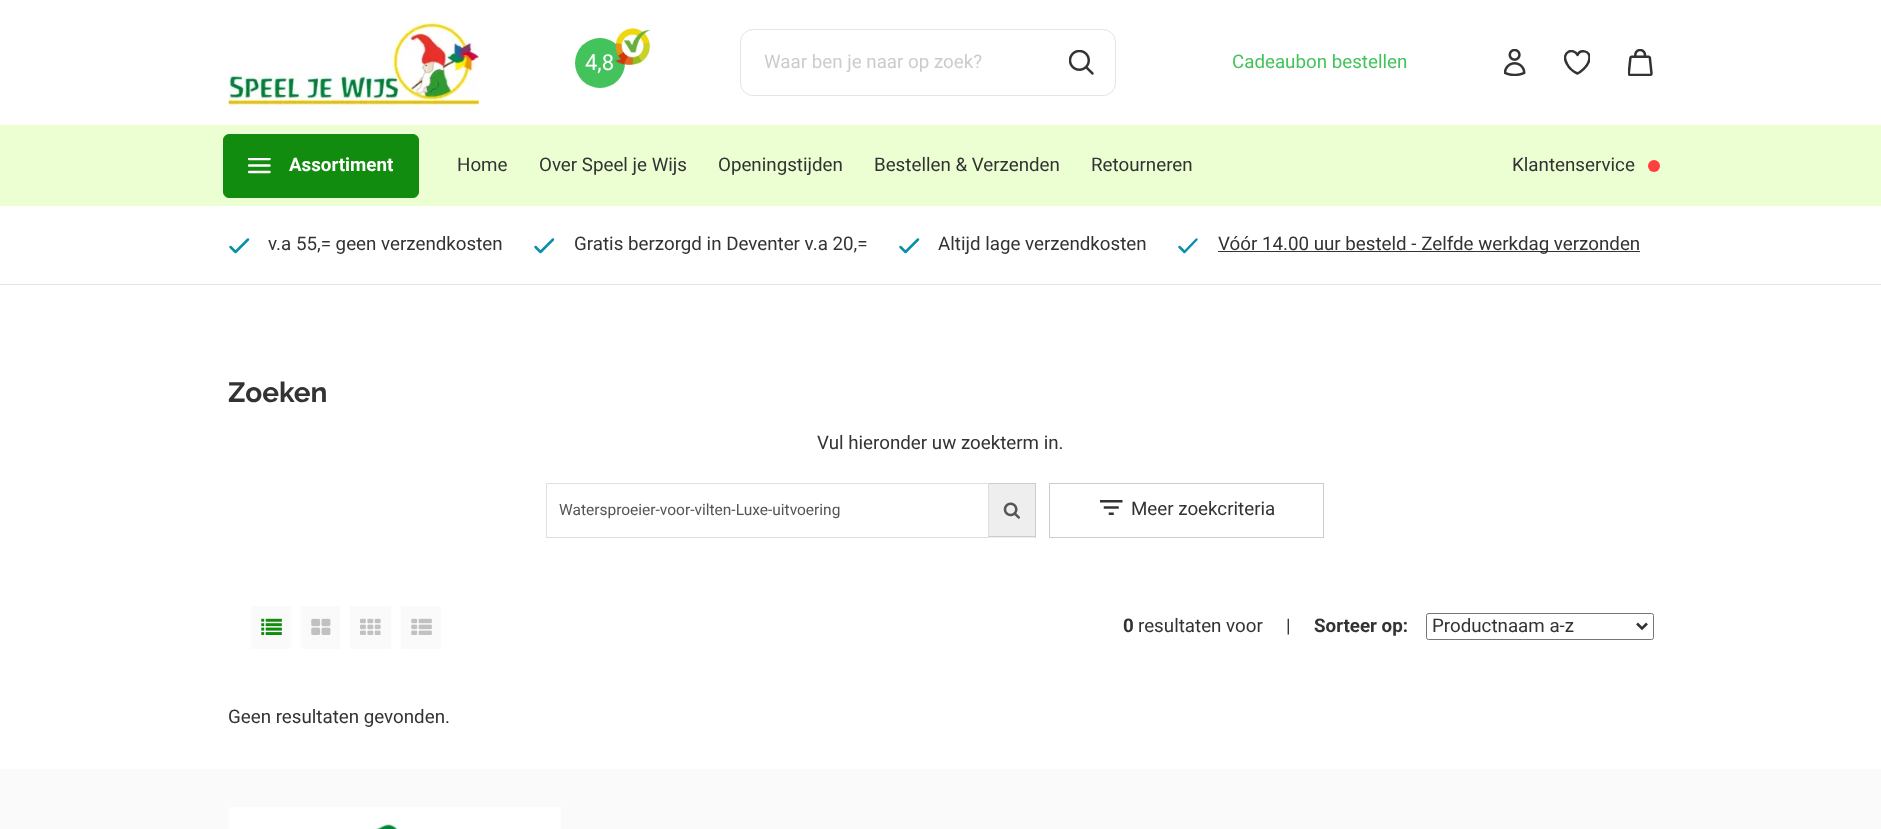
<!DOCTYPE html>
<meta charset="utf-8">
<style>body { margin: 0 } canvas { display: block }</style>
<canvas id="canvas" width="1881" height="829"></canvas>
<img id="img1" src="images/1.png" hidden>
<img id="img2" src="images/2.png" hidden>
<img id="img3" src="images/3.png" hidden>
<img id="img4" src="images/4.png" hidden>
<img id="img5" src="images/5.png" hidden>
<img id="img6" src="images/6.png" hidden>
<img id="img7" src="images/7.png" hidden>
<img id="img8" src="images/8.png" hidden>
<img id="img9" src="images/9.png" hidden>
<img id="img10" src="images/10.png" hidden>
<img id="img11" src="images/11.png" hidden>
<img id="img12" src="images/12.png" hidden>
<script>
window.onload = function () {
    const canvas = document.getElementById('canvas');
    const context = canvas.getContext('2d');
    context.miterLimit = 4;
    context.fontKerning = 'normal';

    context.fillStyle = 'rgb(255, 255, 255)';
    context.fillRect(0, 0, 1881, 829);
    context.drawImage(document.getElementById('img1'), 228, 20, 251, 87);
    context.fillStyle = 'rgb(68, 195, 92)';
    context.beginPath();
    context.arc(600, 63, 25, 0, 2 * Math.PI);
    context.fill();
    context.drawImage(document.getElementById('img2'), 615, 28, 36, 37);
    context.beginPath();
    context.roundRect(740.5, 29.5, 375, 66, 12.5);
    context.strokeStyle = 'rgb(229, 229, 229)';
    context.stroke();
    context.drawImage(document.getElementById('img3'), 1069, 50, 25, 25);
    context.drawImage(document.getElementById('img4'), 1504, 49, 22, 27);
    context.save();
    context.beginPath();
    context.rect(1564, 50, 26, 25);
    context.clip();
    context.beginPath();
    context.moveTo(1589.5, 57.5);
    context.bezierCurveTo(1589.5, 50.5, 1580, 49, 1577.5, 55);
    context.bezierCurveTo(1573.5, 47, 1560, 52, 1567, 64);
    context.bezierCurveTo(1569, 68, 1573, 71.5, 1577.5, 73.5);
    context.bezierCurveTo(1577.5, 73.5, 1589.5, 67, 1589.5, 57.5);
    context.closePath();
    context.strokeStyle = 'rgb(51, 51, 51)';
    context.lineWidth = 2.5;
    context.lineCap = 'round';
    context.lineJoin = 'round';
    context.stroke();
    context.restore();
    context.drawImage(document.getElementById('img5'), 1628, 49, 25, 27);
    context.fillStyle = 'rgb(235, 255, 210)';
    context.fillRect(0, 125, 1881, 81);
    context.fillStyle = 'rgb(18, 140, 14)';
    context.beginPath();
    context.roundRect(223.5, 134.5, 195, 63, 5.5);
    context.fill();
    context.strokeStyle = 'rgb(18, 140, 14)';
    context.stroke();
    context.save();
    context.beginPath();
    context.rect(248, 158, 23, 16);
    context.clip();
    context.beginPath();
    context.moveTo(249, 159);
    context.lineTo(269.5, 159);
    context.moveTo(249, 165.5);
    context.lineTo(269.5, 165.5);
    context.moveTo(249, 172);
    context.lineTo(269.5, 172);
    context.strokeStyle = 'rgb(255, 255, 255)';
    context.lineWidth = 2.5;
    context.lineCap = 'round';
    context.lineJoin = 'round';
    context.stroke();
    context.restore();
    context.fillStyle = 'rgb(255, 64, 64)';
    context.beginPath();
    context.arc(1654, 166, 6, 0, 2 * Math.PI);
    context.fill();
    context.fillStyle = 'rgb(229, 229, 229)';
    context.fillRect(0, 284, 1881, 1);
    context.beginPath();
    context.moveTo(230.5, 247);
    context.lineTo(235.5, 252);
    context.lineTo(248, 239.5);
    context.strokeStyle = 'rgb(8, 144, 169)';
    context.lineWidth = 2.5;
    context.lineCap = 'round';
    context.lineJoin = 'round';
    context.stroke();
    context.beginPath();
    context.moveTo(535.5, 247);
    context.lineTo(540.5, 252);
    context.lineTo(553, 239.5);
    context.stroke();
    context.beginPath();
    context.moveTo(900.5, 247);
    context.lineTo(905.5, 252);
    context.lineTo(918, 239.5);
    context.stroke();
    context.beginPath();
    context.moveTo(1179.5, 247);
    context.lineTo(1184.5, 252);
    context.lineTo(1196.5, 239.5);
    context.stroke();
    context.fillStyle = 'rgb(51, 51, 51)';
    context.fillRect(1218, 251, 422, 1);
    context.strokeStyle = 'rgb(223, 223, 223)';
    context.lineWidth = 1;
    context.lineJoin = 'miter';
    context.strokeRect(546.5, 483.5, 442, 54);
    context.fillStyle = 'rgb(238, 238, 238)';
    context.fillRect(989, 484, 46, 54);
    context.fillStyle = 'rgb(204, 204, 204)';
    context.fillRect(989, 483, 47, 1);
    context.fillRect(1035, 483, 1, 55);
    context.fillRect(989, 536, 47, 1);
    context.drawImage(document.getElementById('img6'), 1003, 502, 17, 17);
    context.strokeStyle = 'rgb(204, 204, 204)';
    context.strokeRect(1049.5, 483.5, 274, 54);
    context.drawImage(document.getElementById('img7'), 1100, 500, 23, 15);
    context.fillStyle = 'rgb(250, 250, 250)';
    context.fillRect(251, 606, 40, 43);
    context.drawImage(document.getElementById('img8'), 261, 618, 21, 17);
    context.fillRect(301, 606, 39, 43);
    context.drawImage(document.getElementById('img9'), 311, 618, 20, 17);
    context.fillRect(350, 606, 41, 43);
    context.drawImage(document.getElementById('img10'), 360, 618, 21, 17);
    context.fillRect(401, 606, 40, 43);
    context.drawImage(document.getElementById('img11'), 411, 618, 21, 17);
    context.beginPath();
    context.roundRect(1426.5, 613.5, 227, 26, 2);
    context.strokeStyle = 'rgb(118, 118, 118)';
    context.stroke();
    context.beginPath();
    context.moveTo(1637, 623.5);
    context.lineTo(1642, 628.5);
    context.lineTo(1647, 623.5);
    context.strokeStyle = 'rgb(51, 51, 51)';
    context.lineWidth = 2.5;
    context.lineCap = 'butt';
    context.stroke();
    context.fillRect(0, 769, 1881, 60);
    context.drawImage(document.getElementById('img12'), 229, 807, 332, 22);
    context.font = '22px Roboto';
    context.fillStyle = 'rgb(255, 255, 255)';
    context.fillText('4,8', 585, 70);
    context.font = '18.75px Roboto';
    context.fillStyle = 'rgb(204, 204, 204)';
    context.fillText('Waar ben je naar op zoek?', 764, 68);
    context.fillStyle = 'rgb(68, 195, 92)';
    context.fillText('Cadeaubon bestellen', 1232, 68);
    context.font = 'bold 18.75px Roboto';
    context.fillStyle = 'rgb(255, 255, 255)';
    context.fillText('Assortiment', 289, 171);
    context.font = '18.75px Roboto';
    context.fillStyle = 'rgb(51, 51, 51)';
    context.fillText('Home', 457, 171);
    context.fillText('Over Speel je Wijs', 539, 171);
    context.fillText('Openingstijden', 718, 171);
    context.fillText('Bestellen & Verzenden', 874, 171);
    context.fillText('Retourneren', 1091, 171);
    context.fillText('Klantenservice', 1512, 171);
    context.fillText('v.a 55,= geen verzendkosten', 268, 250);
    context.fillText('Gratis berzorgd in Deventer v.a 20,=', 574, 250);
    context.fillText('Altijd lage verzendkosten', 938, 250);
    context.fillText('Vóór 14.00 uur besteld - Zelfde werkdag verzonden', 1218, 250);
    context.font = 'bold 28px Raleway';
    context.fillText('Zoeken', 228, 402);
    context.font = '18.75px Roboto';
    context.fillText('Vul hieronder uw zoekterm in.', 817, 449);
    context.font = '15.5px Roboto';
    context.fillStyle = 'rgb(85, 85, 85)';
    context.fillText('Watersproeier-voor-vilten-Luxe-uitvoering', 559, 515);
    context.font = '18.75px Roboto';
    context.fillStyle = 'rgb(51, 51, 51)';
    context.fillText('Meer zoekcriteria', 1131, 515);
    context.font = 'bold 18.75px Roboto';
    context.fillText('0', 1123, 632);
    context.font = '18.75px Roboto';
    context.fillText('resultaten voor', 1138, 632);
    context.fillText('|', 1286, 632);
    context.font = 'bold 18.75px Roboto';
    context.fillText('Sorteer op:', 1314, 632);
    context.font = '18.75px Roboto';
    context.fillText('Productnaam a-z', 1432, 632);
    context.fillText('Geen resultaten gevonden.', 228, 723);
};
</script>
